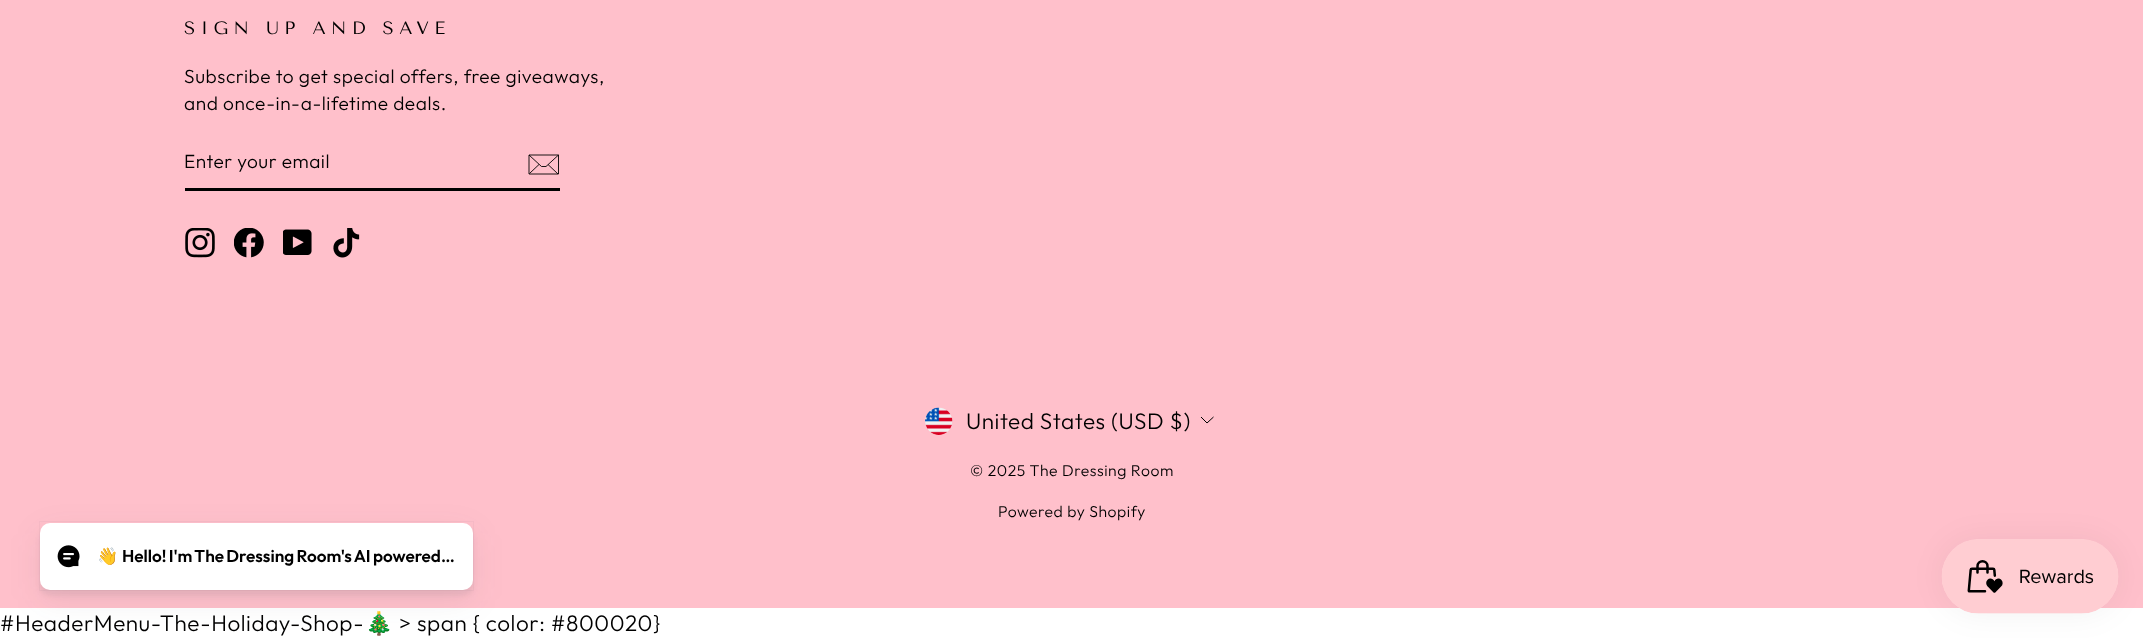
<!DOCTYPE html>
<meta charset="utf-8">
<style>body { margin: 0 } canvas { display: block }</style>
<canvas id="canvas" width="2143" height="638"></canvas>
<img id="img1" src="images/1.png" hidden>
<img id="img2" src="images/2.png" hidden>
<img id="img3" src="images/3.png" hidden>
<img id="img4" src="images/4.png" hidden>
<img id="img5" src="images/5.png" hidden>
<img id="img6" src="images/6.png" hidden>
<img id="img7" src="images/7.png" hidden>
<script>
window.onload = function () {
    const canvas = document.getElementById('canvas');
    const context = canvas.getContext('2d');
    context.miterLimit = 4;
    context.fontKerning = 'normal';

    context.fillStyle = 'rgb(255, 255, 255)';
    context.fillRect(0, 0, 2143, 638);
    context.fillStyle = 'rgb(255, 192, 203)';
    context.fillRect(0, 0, 2143, 608);
    context.fillStyle = 'rgb(0, 0, 0)';
    context.fillRect(185, 188, 375, 3);
    context.beginPath();
    context.moveTo(558.5, 174);
    context.lineTo(529, 174);
    context.lineTo(529, 155);
    context.lineTo(558.5, 155);
    context.closePath();
    context.moveTo(529, 155);
    context.lineTo(541.5, 166.5);
    context.lineTo(546, 166.5);
    context.lineTo(558.5, 155);
    context.moveTo(539, 164.5);
    context.lineTo(529.5, 173.5);
    context.moveTo(558, 174);
    context.lineTo(548, 164.5);
    context.strokeStyle = 'rgb(0, 0, 0)';
    context.lineWidth = 0.9;
    context.stroke();
    context.drawImage(document.getElementById('img1'), 185, 228, 30, 30);
    context.drawImage(document.getElementById('img2'), 234, 228, 30, 30);
    context.drawImage(document.getElementById('img3'), 283, 229, 29, 26);
    context.drawImage(document.getElementById('img4'), 333, 228, 27, 30);
    context.drawImage(document.getElementById('img5'), 925, 407, 28, 28);
    context.beginPath();
    context.moveTo(1201, 417);
    context.lineTo(1207, 423);
    context.lineTo(1213.5, 417);
    context.lineWidth = 1;
    context.stroke();
    context.fillStyle = 'rgba(55, 63, 71, 0.08)';
    context.filter = 'blur(16px)';
    context.beginPath();
    context.roundRect(40, 533, 433, 68, 10);
    context.fill();
    context.filter = 'none';
    context.filter = 'blur(2.5px)';
    context.beginPath();
    context.roundRect(40, 528, 433, 68, 10);
    context.fill();
    context.filter = 'none';
    context.strokeStyle = 'rgba(55, 63, 71, 0.04)';
    context.strokeRect(39.5, 521.5, 434, 69);
    context.fillStyle = 'rgb(255, 255, 255)';
    context.beginPath();
    context.roundRect(40, 523, 433, 67, 10);
    context.fill();
    context.drawImage(document.getElementById('img6'), 57, 545, 23, 23);
    context.fillStyle = 'rgba(0, 0, 0, 0.05)';
    context.filter = 'blur(15.5px)';
    context.beginPath();
    context.roundRect(1941, 539, 178, 75, 37.5);
    context.fill();
    context.filter = 'none';
    context.drawImage(document.getElementById('img7'), 1941, 539, 178, 75);
    context.letterSpacing = '5.4px';
    context.font = '18px Tenor Sans';
    context.fillStyle = 'rgb(0, 0, 0)';
    context.fillText('SIGN UP AND SAVE', 184, 34);
    context.letterSpacing = '0.55px';
    context.font = '300 19.1px Outfit';
    context.fillText('Subscribe to get special offers, free giveaways,', 184, 83);
    context.fillText('and once-in-a-lifetime deals.', 184, 110);
    context.letterSpacing = '0.5px';
    context.fillText('Enter your email', 184, 168);
    context.letterSpacing = '0.55px';
    context.font = '300 22.5px Outfit';
    context.fillText('United States (USD $)', 966, 429);
    context.font = '300 15.75px Outfit';
    context.fillText('© 2025 The Dressing Room', 970, 476);
    context.fillText('Powered by Shopify', 998, 517);
    context.save();
    context.beginPath();
    context.rect(98, 546, 360, 20);
    context.clip();
    context.letterSpacing = '0px';
    context.font = '17.1px Noto Color Emoji';
    context.fillText('👋', 97, 562);
    context.restore();
    context.letterSpacing = '0px';
    context.wordSpacing = '-1px';
    context.font = '600 17.1px Outfit';
    context.fillText('Hello! I\'m The Dressing Room\'s AI powered…', 122, 562);
    context.letterSpacing = '0.55px';
    context.wordSpacing = '0px';
    context.font = '300 22.5px Outfit';
    context.fillText('#HeaderMenu-The-Holiday-Shop-', 0, 631);
    context.font = '22.5px Noto Color Emoji';
    context.fillText('🎄', 365, 631);
    context.font = '300 22.5px Outfit';
    context.fillText('> span { color: #800020}', 399, 631);
};
</script>
